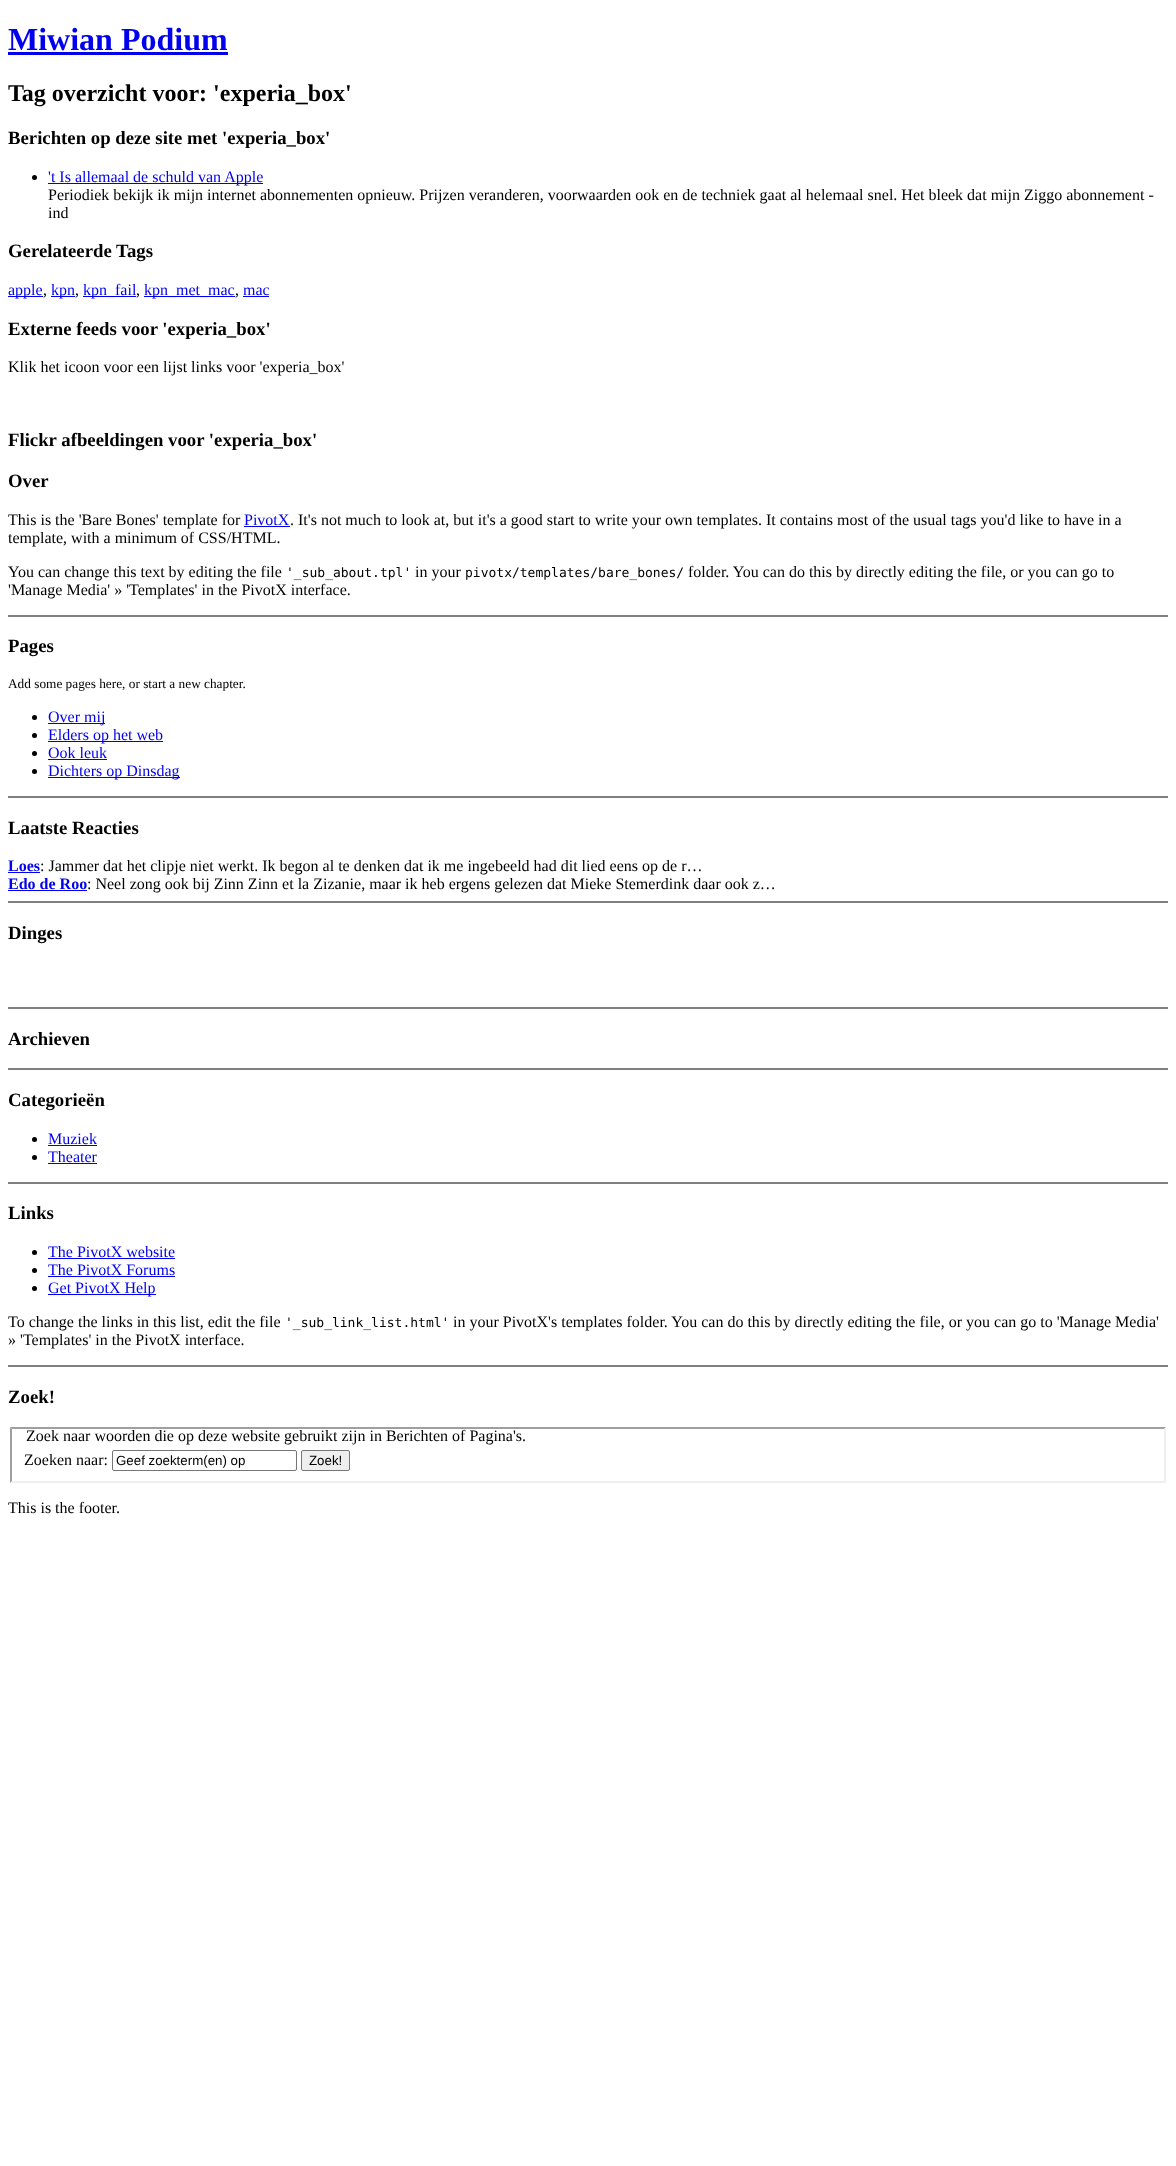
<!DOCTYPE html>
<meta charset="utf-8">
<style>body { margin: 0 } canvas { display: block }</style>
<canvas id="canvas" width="1176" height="2166"></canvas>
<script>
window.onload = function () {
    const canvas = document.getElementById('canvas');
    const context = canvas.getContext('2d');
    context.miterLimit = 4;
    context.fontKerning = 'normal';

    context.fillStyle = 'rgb(255, 255, 255)';
    context.fillRect(0, 0, 1176, 2166);
    context.fillStyle = 'rgb(0, 0, 238)';
    context.fillRect(8, 52, 220, 3);
    context.fillStyle = 'rgb(0, 0, 0)';
    context.beginPath();
    context.arc(34.5, 177.5, 2.5, 0, 2 * Math.PI);
    context.fill();
    context.fillStyle = 'rgb(0, 0, 238)';
    context.fillRect(48, 183, 215, 1);
    context.fillRect(8, 296, 35, 1);
    context.fillRect(51, 296, 24, 1);
    context.fillRect(83, 296, 53, 1);
    context.fillRect(144, 296, 91, 1);
    context.fillRect(243, 296, 26, 1);
    context.fillRect(244, 526, 46, 1);
    context.fillStyle = 'rgb(128, 128, 128)';
    context.fillRect(8, 615, 1160, 2);
    context.fillStyle = 'rgb(0, 0, 0)';
    context.beginPath();
    context.arc(34.5, 717.5, 2.5, 0, 2 * Math.PI);
    context.fill();
    context.fillStyle = 'rgb(0, 0, 238)';
    context.fillRect(48, 723, 57, 1);
    context.fillStyle = 'rgb(0, 0, 0)';
    context.beginPath();
    context.arc(34.5, 735.5, 2.5, 0, 2 * Math.PI);
    context.fill();
    context.fillStyle = 'rgb(0, 0, 238)';
    context.fillRect(48, 741, 115, 1);
    context.fillStyle = 'rgb(0, 0, 0)';
    context.beginPath();
    context.arc(34.5, 753.5, 2.5, 0, 2 * Math.PI);
    context.fill();
    context.fillStyle = 'rgb(0, 0, 238)';
    context.fillRect(48, 759, 59, 1);
    context.fillStyle = 'rgb(0, 0, 0)';
    context.beginPath();
    context.arc(34.5, 771.5, 2.5, 0, 2 * Math.PI);
    context.fill();
    context.fillStyle = 'rgb(0, 0, 238)';
    context.fillRect(48, 777, 132, 1);
    context.fillStyle = 'rgb(128, 128, 128)';
    context.fillRect(8, 796, 1160, 2);
    context.fillStyle = 'rgb(0, 0, 238)';
    context.fillRect(8, 872, 32, 1);
    context.fillRect(8, 890, 79, 1);
    context.fillStyle = 'rgb(128, 128, 128)';
    context.fillRect(8, 901, 1160, 2);
    context.fillRect(8, 1007, 1160, 2);
    context.fillRect(8, 1068, 1160, 2);
    context.fillStyle = 'rgb(0, 0, 0)';
    context.beginPath();
    context.arc(34.5, 1139.5, 2.5, 0, 2 * Math.PI);
    context.fill();
    context.fillStyle = 'rgb(0, 0, 238)';
    context.fillRect(48, 1145, 49, 1);
    context.fillStyle = 'rgb(0, 0, 0)';
    context.beginPath();
    context.arc(34.5, 1157.5, 2.5, 0, 2 * Math.PI);
    context.fill();
    context.fillStyle = 'rgb(0, 0, 238)';
    context.fillRect(48, 1163, 49, 1);
    context.fillStyle = 'rgb(128, 128, 128)';
    context.fillRect(8, 1182, 1160, 2);
    context.fillStyle = 'rgb(0, 0, 0)';
    context.beginPath();
    context.arc(34.5, 1252.5, 2.5, 0, 2 * Math.PI);
    context.fill();
    context.fillStyle = 'rgb(0, 0, 238)';
    context.fillRect(48, 1258, 127, 1);
    context.fillStyle = 'rgb(0, 0, 0)';
    context.beginPath();
    context.arc(34.5, 1270.5, 2.5, 0, 2 * Math.PI);
    context.fill();
    context.fillStyle = 'rgb(0, 0, 238)';
    context.fillRect(48, 1276, 127, 1);
    context.fillStyle = 'rgb(0, 0, 0)';
    context.beginPath();
    context.arc(34.5, 1288.5, 2.5, 0, 2 * Math.PI);
    context.fill();
    context.fillStyle = 'rgb(0, 0, 238)';
    context.fillRect(48, 1294, 108, 1);
    context.fillStyle = 'rgb(128, 128, 128)';
    context.fillRect(8, 1365, 1160, 2);
    context.fillStyle = 'rgb(159, 159, 159)';
    context.beginPath();
    context.moveTo(10, 1427);
    context.lineTo(1166, 1427);
    context.lineTo(1164, 1429);
    context.lineTo(12, 1429);
    context.closePath();
    context.fill();
    context.fillStyle = 'rgb(239, 239, 239)';
    context.beginPath();
    context.moveTo(1166, 1427);
    context.lineTo(1166, 1483);
    context.lineTo(1164, 1481);
    context.lineTo(1164, 1429);
    context.closePath();
    context.fill();
    context.beginPath();
    context.moveTo(1166, 1483);
    context.lineTo(10, 1483);
    context.lineTo(12, 1481);
    context.lineTo(1164, 1481);
    context.closePath();
    context.fill();
    context.fillStyle = 'rgb(159, 159, 159)';
    context.beginPath();
    context.moveTo(10, 1483);
    context.lineTo(10, 1427);
    context.lineTo(12, 1429);
    context.lineTo(12, 1481);
    context.closePath();
    context.fill();
    context.beginPath();
    context.roundRect(112.5, 1450.5, 184, 20, 1.5);
    context.strokeStyle = 'rgb(118, 118, 118)';
    context.stroke();
    context.fillStyle = 'rgb(239, 239, 239)';
    context.beginPath();
    context.roundRect(301.5, 1450.5, 48, 20, 1.5);
    context.fill();
    context.stroke();
    context.font = 'bold 32px Liberation Serif';
    context.fillStyle = 'rgb(0, 0, 238)';
    context.fillText('Miwian Podium', 8, 50);
    context.font = 'bold 24px Liberation Serif';
    context.fillStyle = 'rgb(0, 0, 0)';
    context.fillText('Tag overzicht voor: \'experia_box\'', 8, 101);
    context.font = 'bold 18.75px Liberation Serif';
    context.fillText('Berichten op deze site met \'experia_box\'', 8, 144);
    context.font = '16px Liberation Serif';
    context.fillStyle = 'rgb(0, 0, 238)';
    context.fillText('\'t Is allemaal de schuld van Apple', 48, 182);
    context.fillStyle = 'rgb(0, 0, 0)';
    context.fillText('Periodiek bekijk ik mijn internet abonnementen opnieuw. Prijzen veranderen, voorwaarden ook en de techniek gaat al helemaal snel. Het bleek dat mijn Ziggo abonnement -', 48, 200);
    context.fillText('ind', 48, 218);
    context.font = 'bold 18.75px Liberation Serif';
    context.fillText('Gerelateerde Tags', 8, 257);
    context.font = '16px Liberation Serif';
    context.fillStyle = 'rgb(0, 0, 238)';
    context.fillText('apple', 8, 295);
    context.fillStyle = 'rgb(0, 0, 0)';
    context.fillText(',', 43, 295);
    context.fillStyle = 'rgb(0, 0, 238)';
    context.fillText('kpn', 51, 295);
    context.fillStyle = 'rgb(0, 0, 0)';
    context.fillText(',', 75, 295);
    context.fillStyle = 'rgb(0, 0, 238)';
    context.fillText('kpn_fail', 83, 295);
    context.fillStyle = 'rgb(0, 0, 0)';
    context.fillText(',', 136, 295);
    context.fillStyle = 'rgb(0, 0, 238)';
    context.fillText('kpn_met_mac', 144, 295);
    context.fillStyle = 'rgb(0, 0, 0)';
    context.fillText(',', 235, 295);
    context.fillStyle = 'rgb(0, 0, 238)';
    context.fillText('mac', 243, 295);
    context.font = 'bold 18.75px Liberation Serif';
    context.fillStyle = 'rgb(0, 0, 0)';
    context.fillText('Externe feeds voor \'experia_box\'', 8, 335);
    context.font = '16px Liberation Serif';
    context.fillText('Klik het icoon voor een lijst links voor \'experia_box\'', 8, 372);
    context.font = 'bold 18.75px Liberation Serif';
    context.fillText('Flickr afbeeldingen voor \'experia_box\'', 8, 446);
    context.fillText('Over', 8, 487);
    context.font = '16px Liberation Serif';
    context.fillText('This is the \'Bare Bones\' template for', 8, 525);
    context.fillStyle = 'rgb(0, 0, 238)';
    context.fillText('PivotX', 244, 525);
    context.fillStyle = 'rgb(0, 0, 0)';
    context.fillText('. It\'s not much to look at, but it\'s a good start to write your own templates. It contains most of the usual tags you\'d like to have in a', 290, 525);
    context.fillText('template, with a minimum of CSS/HTML.', 8, 543);
    context.fillText('You can change this text by editing the file', 8, 577);
    context.font = '13px DejaVu Sans Mono';
    context.fillText('\'_sub_about.tpl\'', 286, 577);
    context.font = '16px Liberation Serif';
    context.fillText('in your', 415, 577);
    context.font = '13px DejaVu Sans Mono';
    context.fillText('pivotx/templates/bare_bones/', 465, 577);
    context.font = '16px Liberation Serif';
    context.fillText('folder. You can do this by directly editing the file, or you can go to', 688, 577);
    context.fillText('\'Manage Media\' » \'Templates\' in the PivotX interface.', 8, 595);
    context.font = 'bold 18.75px Liberation Serif';
    context.fillText('Pages', 8, 652);
    context.font = '13.3px Liberation Serif';
    context.fillText('Add some pages here, or start a new chapter.', 8, 688);
    context.font = '16px Liberation Serif';
    context.fillStyle = 'rgb(0, 0, 238)';
    context.fillText('Over mij', 48, 722);
    context.fillText('Elders op het web', 48, 740);
    context.fillText('Ook leuk', 48, 758);
    context.fillText('Dichters op Dinsdag', 48, 776);
    context.font = 'bold 18.75px Liberation Serif';
    context.fillStyle = 'rgb(0, 0, 0)';
    context.fillText('Laatste Reacties', 8, 834);
    context.font = 'bold 16px Liberation Serif';
    context.fillStyle = 'rgb(0, 0, 238)';
    context.fillText('Loes', 8, 871);
    context.font = '16px Liberation Serif';
    context.fillStyle = 'rgb(0, 0, 0)';
    context.fillText(': Jammer dat het clipje niet werkt. Ik begon al te denken dat ik me ingebeeld had dit lied eens op de r…', 40, 871);
    context.font = 'bold 16px Liberation Serif';
    context.fillStyle = 'rgb(0, 0, 238)';
    context.fillText('Edo de Roo', 8, 889);
    context.font = '16px Liberation Serif';
    context.fillStyle = 'rgb(0, 0, 0)';
    context.fillText(': Neel zong ook bij Zinn Zinn et la Zizanie, maar ik heb ergens gelezen dat Mieke Stemerdink daar ook z…', 87, 889);
    context.font = 'bold 18.75px Liberation Serif';
    context.fillText('Dinges', 8, 939);
    context.fillText('Archieven', 8, 1045);
    context.fillText('Categorieën', 8, 1106);
    context.font = '16px Liberation Serif';
    context.fillStyle = 'rgb(0, 0, 238)';
    context.fillText('Muziek', 48, 1144);
    context.fillText('Theater', 48, 1162);
    context.font = 'bold 18.75px Liberation Serif';
    context.fillStyle = 'rgb(0, 0, 0)';
    context.fillText('Links', 8, 1219);
    context.font = '16px Liberation Serif';
    context.fillStyle = 'rgb(0, 0, 238)';
    context.fillText('The PivotX website', 48, 1257);
    context.fillText('The PivotX Forums', 48, 1275);
    context.fillText('Get PivotX Help', 48, 1293);
    context.fillStyle = 'rgb(0, 0, 0)';
    context.fillText('To change the links in this list, edit the file', 8, 1327);
    context.font = '13px DejaVu Sans Mono';
    context.fillText('\'_sub_link_list.html\'', 285, 1327);
    context.font = '16px Liberation Serif';
    context.fillText('in your PivotX\'s templates folder. You can do this by directly editing the file, or you can go to \'Manage Media\'', 453, 1327);
    context.fillText('» \'Templates\' in the PivotX interface.', 8, 1345);
    context.font = 'bold 18.75px Liberation Serif';
    context.fillText('Zoek!', 8, 1403);
    context.font = '16px Liberation Serif';
    context.fillText('Zoek naar woorden die op deze website gebruikt zijn in Berichten of Pagina\'s.', 26, 1441);
    context.fillText('Zoeken naar:', 24, 1465);
    context.font = '13.3px Liberation Sans';
    context.fillText('Geef zoekterm(en) op', 116, 1465);
    context.fillText('Zoek!', 309, 1465);
    context.font = '16px Liberation Serif';
    context.fillText('This is the footer.', 8, 1513);
};
</script>
